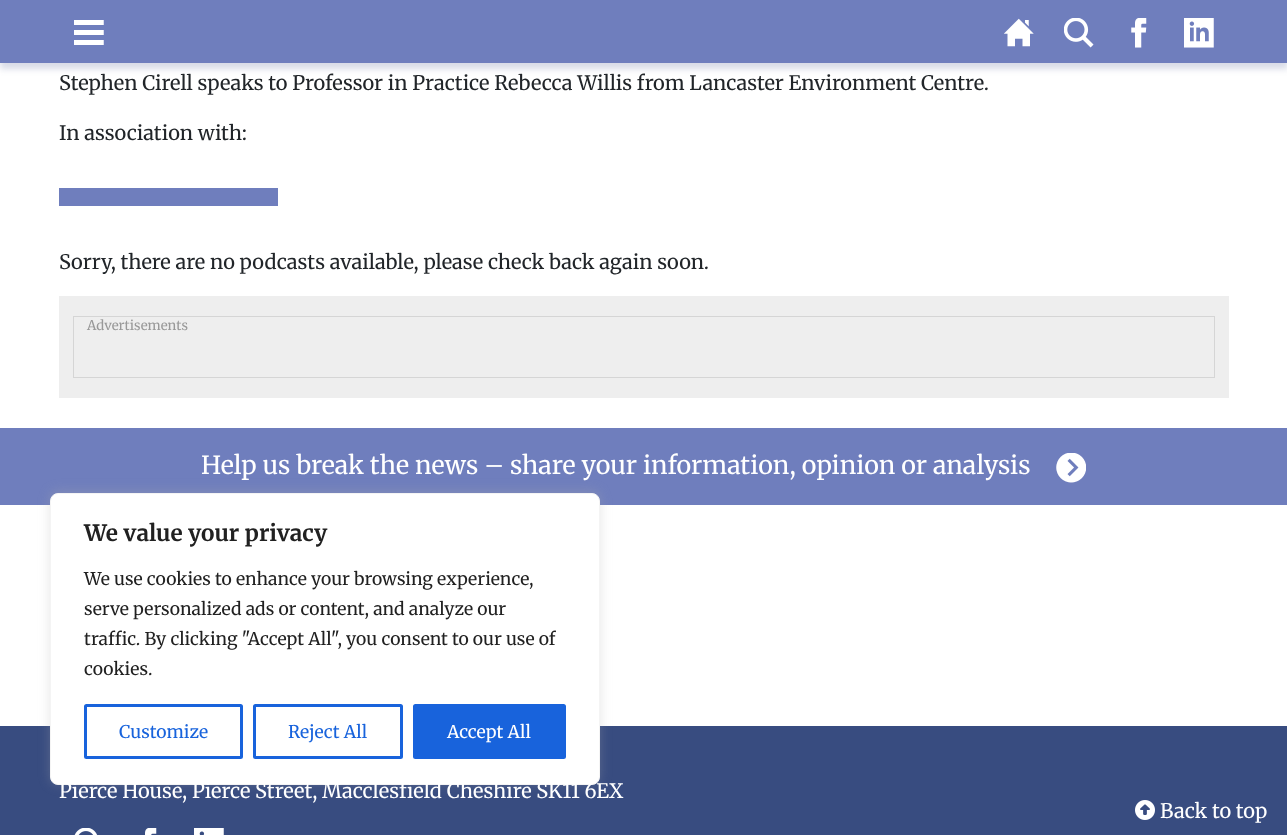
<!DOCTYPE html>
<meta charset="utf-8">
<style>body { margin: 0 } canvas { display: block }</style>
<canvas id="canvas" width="1287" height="835"></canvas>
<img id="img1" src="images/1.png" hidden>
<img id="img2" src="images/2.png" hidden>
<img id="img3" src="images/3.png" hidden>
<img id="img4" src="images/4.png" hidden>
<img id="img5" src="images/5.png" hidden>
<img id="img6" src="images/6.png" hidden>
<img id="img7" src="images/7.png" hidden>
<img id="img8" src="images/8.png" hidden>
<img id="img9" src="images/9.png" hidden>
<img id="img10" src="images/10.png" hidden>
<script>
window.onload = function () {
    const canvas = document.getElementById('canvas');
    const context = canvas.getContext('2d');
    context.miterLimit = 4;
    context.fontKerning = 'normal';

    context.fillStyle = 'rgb(255, 255, 255)';
    context.fillRect(0, 0, 1287, 835);
    context.fillStyle = 'rgba(62, 76, 136, 0.2)';
    context.filter = 'blur(3px)';
    context.beginPath();
    context.rect(0, 6, 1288, 63);
    context.fill();
    context.filter = 'none';
    context.fillStyle = 'rgb(111, 126, 189)';
    context.fillRect(0, 0, 1287, 63);
    context.drawImage(document.getElementById('img1'), 74, 20, 30, 25);
    context.drawImage(document.getElementById('img2'), 1004, 18, 30, 29);
    context.drawImage(document.getElementById('img3'), 1064, 18, 30, 30);
    context.drawImage(document.getElementById('img4'), 1131, 18, 16, 30);
    context.drawImage(document.getElementById('img5'), 1184, 18, 30, 30);
    context.fillRect(59, 188, 219, 18);
    context.fillStyle = 'rgb(238, 238, 238)';
    context.fillRect(59, 296, 1170, 102);
    context.strokeStyle = 'rgb(213, 213, 213)';
    context.strokeRect(73.5, 316.5, 1141, 61);
    context.fillStyle = 'rgb(111, 126, 189)';
    context.fillRect(0, 428, 1287, 77);
    context.drawImage(document.getElementById('img6'), 1056, 453, 30, 30);
    context.fillStyle = 'rgb(56, 76, 128)';
    context.fillRect(0, 726, 1287, 109);
    context.drawImage(document.getElementById('img7'), 74, 828, 24, 7);
    context.drawImage(document.getElementById('img8'), 145, 828, 12, 7);
    context.drawImage(document.getElementById('img9'), 194, 828, 30, 7);
    context.drawImage(document.getElementById('img10'), 1135, 800, 20, 20);
    context.fillStyle = 'rgba(172, 171, 171, 0.3)';
    context.filter = 'blur(6px)';
    context.beginPath();
    context.roundRect(50, 491, 550, 293, 8);
    context.fill();
    context.filter = 'none';
    context.fillStyle = 'rgb(255, 255, 255)';
    context.beginPath();
    context.roundRect(50.5, 493.5, 549, 291, 7.5);
    context.fill();
    context.strokeStyle = 'rgb(244, 244, 244)';
    context.stroke();
    context.beginPath();
    context.roundRect(85.5, 705.5, 156, 52, 1);
    context.strokeStyle = 'rgb(24, 99, 220)';
    context.lineWidth = 3;
    context.stroke();
    context.beginPath();
    context.roundRect(254.5, 705.5, 147, 52, 1);
    context.stroke();
    context.fillStyle = 'rgb(24, 99, 220)';
    context.beginPath();
    context.roundRect(414.5, 705.5, 150, 52, 1);
    context.fill();
    context.stroke();
    context.font = '20px Merriweather';
    context.fillStyle = 'rgb(33, 37, 41)';
    context.fillText('Stephen Cirell speaks to Professor in Practice Rebecca Willis from Lancaster Environment Centre.', 59, 90);
    context.fillText('In association with:', 59, 140);
    context.fillText('Sorry, there are no podcasts available, please check back again soon.', 59, 269);
    context.font = '13.25px Merriweather';
    context.fillStyle = 'rgb(153, 153, 153)';
    context.fillText('Advertisements', 87, 330);
    context.font = '25px Merriweather';
    context.fillStyle = 'rgb(255, 255, 255)';
    context.fillText('Help us break the news – share your information, opinion or analysis', 201, 474);
    context.font = '20px Merriweather';
    context.fillText('Pierce House, Pierce Street, Macclesfield Cheshire SK11 6EX', 59, 798);
    context.fillText('Back to top', 1160, 818);
    context.font = 'bold 22.5px Merriweather';
    context.fillStyle = 'rgb(33, 33, 33)';
    context.fillText('We value your privacy', 84, 541);
    context.font = '17.5px Merriweather';
    context.fillText('We use cookies to enhance your browsing experience,', 84, 585);
    context.fillText('serve personalized ads or content, and analyze our', 84, 615);
    context.fillText('traffic. By clicking "Accept All", you consent to our use of', 84, 645);
    context.fillText('cookies.', 84, 675);
    context.fillStyle = 'rgb(24, 99, 220)';
    context.fillText('Customize', 119, 738);
    context.fillText('Reject All', 288, 738);
    context.fillStyle = 'rgb(255, 255, 255)';
    context.fillText('Accept All', 447, 738);
};
</script>
